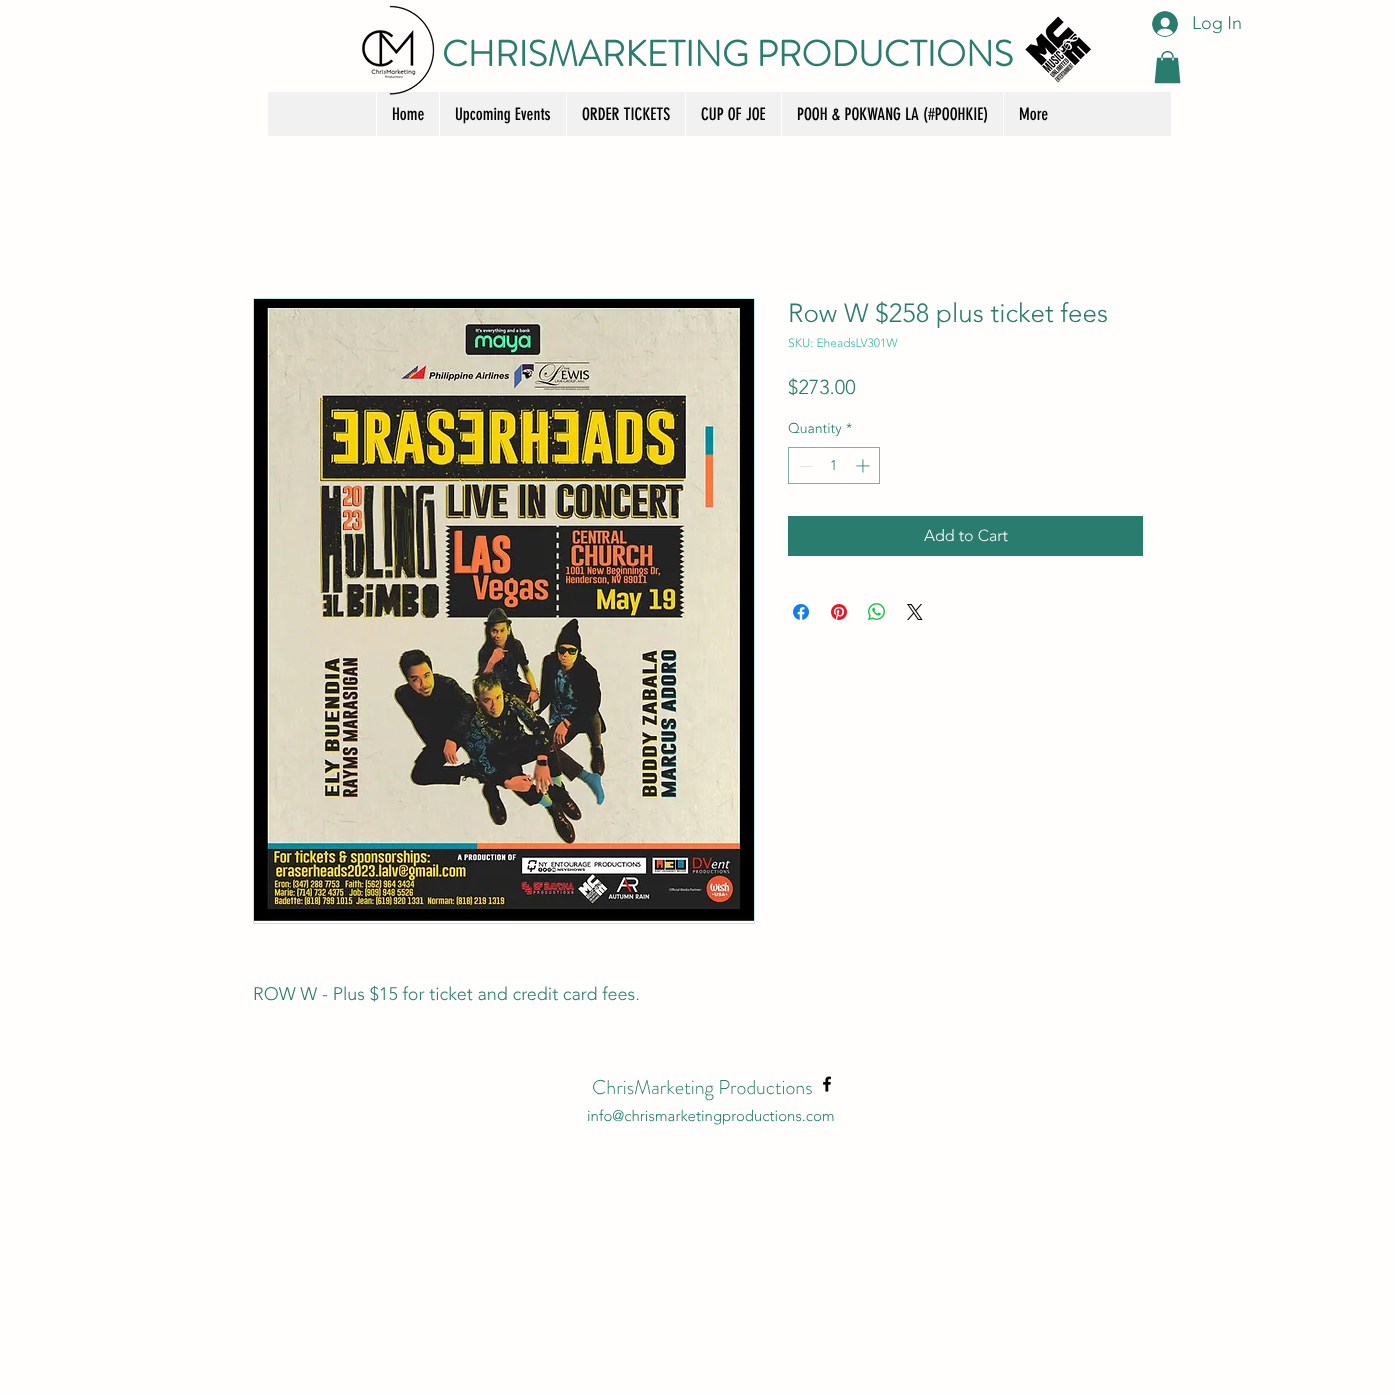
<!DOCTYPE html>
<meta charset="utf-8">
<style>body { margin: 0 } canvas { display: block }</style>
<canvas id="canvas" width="1396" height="1396"></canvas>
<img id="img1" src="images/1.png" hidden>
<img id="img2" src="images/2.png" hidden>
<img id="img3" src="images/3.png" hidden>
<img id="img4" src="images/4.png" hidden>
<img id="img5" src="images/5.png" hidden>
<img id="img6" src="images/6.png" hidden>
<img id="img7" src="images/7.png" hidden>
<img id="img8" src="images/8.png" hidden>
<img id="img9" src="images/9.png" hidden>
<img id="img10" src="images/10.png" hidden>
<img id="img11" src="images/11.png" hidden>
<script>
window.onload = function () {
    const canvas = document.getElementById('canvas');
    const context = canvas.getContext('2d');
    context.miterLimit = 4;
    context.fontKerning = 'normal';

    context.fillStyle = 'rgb(255, 254, 252)';
    context.fillRect(0, 0, 1396, 1396);
    context.fillStyle = 'rgb(241, 241, 241)';
    context.fillRect(268, 92, 903, 44);
    context.fillStyle = 'rgb(255, 255, 255)';
    context.fillRect(376, 92, 1, 44);
    context.drawImage(document.getElementById('img1'), 362, 5, 73, 90);
    context.drawImage(document.getElementById('img2'), 1025, 16, 66, 67);
    context.drawImage(document.getElementById('img3'), 1152, 11, 26, 26);
    context.fillRect(439, 92, 1, 44);
    context.fillRect(566, 92, 1, 44);
    context.fillRect(685, 92, 1, 44);
    context.fillRect(781, 92, 1, 44);
    context.fillRect(1003, 92, 1, 44);
    context.drawImage(document.getElementById('img4'), 1154, 51, 27, 33);
    context.strokeStyle = 'rgb(127, 176, 167)';
    context.strokeRect(788.5, 447.5, 91, 36);
    context.fillStyle = 'rgb(227, 227, 226)';
    context.fillRect(800, 466, 13, 1);
    context.drawImage(document.getElementById('img5'), 856, 459, 14, 14);
    context.fillStyle = 'rgb(42, 124, 111)';
    context.fillRect(788, 516, 355, 40);
    context.drawImage(document.getElementById('img6'), 793, 604, 16, 16);
    context.drawImage(document.getElementById('img7'), 831, 604, 16, 16);
    context.drawImage(document.getElementById('img8'), 868, 603, 17, 17);
    context.drawImage(document.getElementById('img9'), 907, 604, 16, 16);
    context.strokeStyle = 'rgb(189, 233, 226)';
    context.strokeRect(253.5, 298.5, 501, 625);
    context.drawImage(document.getElementById('img10'), 254, 299, 500, 622);
    context.drawImage(document.getElementById('img11'), 823, 1076, 9, 16);
    context.font = '300 18px "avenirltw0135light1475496"';
    context.fillText('Log In', 1192, 29);
    context.font = 'bold 36px "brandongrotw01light"';
    context.fillText('CHRISMARKETING PRODUCTIONS', 442, 66);
    context.font = '17px "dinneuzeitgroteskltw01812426"';
    context.fillStyle = 'rgb(0, 0, 0)';
    context.fillText('Home', 392, 120);
    context.fillText('Upcoming Events', 455, 120);
    context.fillText('ORDER TICKETS', 582, 120);
    context.fillText('CUP OF JOE', 701, 120);
    context.fillText('POOH & POKWANG LA (#POOHKIE)', 797, 120);
    context.fillText('More', 1019, 120);
    context.font = '300 26px "avenirltw0135light1475496"';
    context.fillStyle = 'rgb(42, 124, 111)';
    context.fillText('Row W $258 plus ticket fees', 788, 322);
    context.font = '300 12px "avenirltw0135light1475496"';
    context.fillStyle = 'rgb(64, 188, 168)';
    context.fillText('SKU: EheadsLV301W', 788, 347);
    context.font = '300 20px "avenirltw0135light1475496"';
    context.fillStyle = 'rgb(42, 124, 111)';
    context.fillText('$273.00', 788, 394);
    context.font = '300 14px "avenirltw0135light1475496"';
    context.fillText('Quantity', 788, 433);
    context.fillText('*', 846, 433);
    context.fillText('1', 830, 470);
    context.font = '300 16px "avenirltw0135light1475496"';
    context.fillStyle = 'rgb(255, 254, 252)';
    context.fillText('Add to Cart', 924, 541);
    context.font = '300 18px "avenirltw0135light1475496"';
    context.fillStyle = 'rgb(42, 124, 111)';
    context.fillText('ROW W - Plus $15 for ticket and credit card fees.', 253, 1000);
    context.font = '300 20px "brandongrotw01light"';
    context.fillText('ChrisMarketing Productions', 592, 1094);
    context.font = '300 15px "avenirltw0135light1475496"';
    context.fillText('info@chrismarketingproductions.com', 587, 1121);
};
</script>
